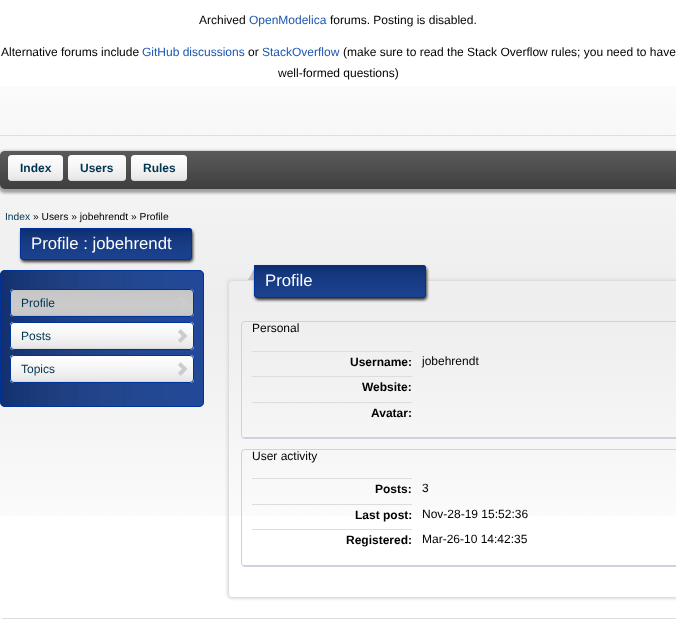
<!DOCTYPE html>
<meta charset="utf-8">
<style>body { margin: 0 } canvas { display: block }</style>
<canvas id="canvas" width="676" height="633"></canvas>
<img id="img1" src="images/1.png" hidden>
<img id="img2" src="images/2.png" hidden>
<img id="img3" src="images/3.png" hidden>
<img id="img4" src="images/4.png" hidden>
<img id="img5" src="images/5.png" hidden>
<img id="img6" src="images/6.png" hidden>
<img id="img7" src="images/7.png" hidden>
<img id="img8" src="images/8.png" hidden>
<img id="img9" src="images/9.png" hidden>
<img id="img10" src="images/10.png" hidden>
<img id="img11" src="images/11.png" hidden>
<img id="img12" src="images/12.png" hidden>
<img id="img13" src="images/13.png" hidden>
<script>
window.onload = function () {
    const canvas = document.getElementById('canvas');
    const context = canvas.getContext('2d');
    context.miterLimit = 4;
    context.fontKerning = 'normal';

    context.fillStyle = 'rgb(255, 255, 255)';
    context.fillRect(0, 0, 676, 633);
    context.drawImage(document.getElementById('img1'), 0, 86, 676, 430);
    context.fillStyle = 'rgb(221, 221, 221)';
    context.fillRect(2, 618, 674, 1);
    context.fillRect(0, 135, 676, 1);
    context.fillStyle = 'rgb(160, 160, 160)';
    context.filter = 'blur(1.5px)';
    context.beginPath();
    context.roundRect(-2, 151, 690, 42, 7);
    context.fill();
    context.filter = 'none';
    context.fillStyle = 'rgb(32, 31, 31)';
    context.beginPath();
    context.roundRect(0, 151, 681, 38, 5);
    context.fill();
    context.drawImage(document.getElementById('img2'), 0, 151, 676, 38);
    context.fillStyle = 'rgb(252, 252, 252)';
    context.beginPath();
    context.roundRect(8, 155, 55, 26, 4);
    context.fill();
    context.drawImage(document.getElementById('img3'), 8, 155, 55, 26);
    context.beginPath();
    context.roundRect(68, 155, 58, 26, 4);
    context.fill();
    context.drawImage(document.getElementById('img4'), 68, 155, 58, 26);
    context.beginPath();
    context.roundRect(131, 155, 56, 26, 4);
    context.fill();
    context.drawImage(document.getElementById('img5'), 131, 155, 56, 26);
    context.fillStyle = 'rgb(51, 51, 51)';
    context.filter = 'blur(1.5px)';
    context.beginPath();
    context.roundRect(21, 230, 172, 32, 4);
    context.fill();
    context.filter = 'none';
    context.fillStyle = 'rgb(0, 51, 153)';
    context.beginPath();
    context.roundRect(20, 228, 172, 32, [0, 3, 4, 4]);
    context.fill();
    context.drawImage(document.getElementById('img6'), 20, 229, 172, 31);
    context.beginPath();
    context.roundRect(20.5, 228.5, 171, 31, [0, 2.5, 3.5, 3.5]);
    context.strokeStyle = 'rgb(0, 51, 153)';
    context.stroke();
    context.beginPath();
    context.roundRect(0, 270, 204, 137, 5);
    context.fill();
    context.drawImage(document.getElementById('img7'), 1, 270, 203, 137);
    context.beginPath();
    context.roundRect(0.5, 270.5, 203, 136, 4.5);
    context.stroke();
    context.fillStyle = 'rgb(153, 153, 153)';
    context.beginPath();
    context.roundRect(10, 289, 184, 28, 4);
    context.fill();
    context.drawImage(document.getElementById('img8'), 10, 289, 184, 27);
    context.beginPath();
    context.roundRect(10.5, 289.5, 183, 27, 3.5);
    context.stroke();
    context.drawImage(document.getElementById('img9'), 178, 296, 9, 13);
    context.fillStyle = 'rgb(252, 252, 252)';
    context.beginPath();
    context.roundRect(10, 322, 184, 28, 4);
    context.fill();
    context.drawImage(document.getElementById('img10'), 10, 322, 184, 27);
    context.beginPath();
    context.roundRect(10.5, 322.5, 183, 27, 3.5);
    context.stroke();
    context.drawImage(document.getElementById('img11'), 178, 329, 10, 14);
    context.beginPath();
    context.roundRect(10, 355, 184, 28, 4);
    context.fill();
    context.drawImage(document.getElementById('img10'), 10, 355, 184, 27);
    context.beginPath();
    context.roundRect(10.5, 355.5, 183, 27, 3.5);
    context.stroke();
    context.drawImage(document.getElementById('img11'), 178, 362, 10, 14);
    context.save();
    context.beginPath();
    context.moveTo(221, 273);
    context.lineTo(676, 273);
    context.lineTo(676, 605);
    context.lineTo(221, 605);
    context.closePath();
    context.moveTo(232, 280);
    context.lineTo(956, 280);
    context.bezierCurveTo(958, 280, 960, 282, 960, 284);
    context.lineTo(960, 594);
    context.bezierCurveTo(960, 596, 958, 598, 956, 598);
    context.lineTo(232, 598);
    context.bezierCurveTo(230, 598, 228, 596, 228, 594);
    context.lineTo(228, 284);
    context.bezierCurveTo(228, 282, 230, 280, 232, 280);
    context.closePath();
    context.clip('evenodd');
    context.fillStyle = 'rgb(221, 221, 221)';
    context.filter = 'blur(1.5px)';
    context.beginPath();
    context.roundRect(227, 279, 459, 320, 5);
    context.fill();
    context.filter = 'none';
    context.restore();
    context.beginPath();
    context.roundRect(228.5, 280.5, 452, 317, 3.5);
    context.strokeStyle = 'rgb(221, 221, 221)';
    context.stroke();
    context.drawImage(document.getElementById('img12'), 248, 270, 6, 10);
    context.fillStyle = 'rgb(51, 51, 51)';
    context.filter = 'blur(1.5px)';
    context.beginPath();
    context.roundRect(255, 267, 172, 33, 4);
    context.fill();
    context.filter = 'none';
    context.fillStyle = 'rgb(0, 51, 153)';
    context.beginPath();
    context.roundRect(254, 265, 172, 33, [0, 3, 4, 4]);
    context.fill();
    context.drawImage(document.getElementById('img13'), 254, 266, 172, 32);
    context.beginPath();
    context.roundRect(254.5, 265.5, 171, 32, [0, 2.5, 3.5, 3.5]);
    context.strokeStyle = 'rgb(0, 51, 153)';
    context.stroke();
    context.beginPath();
    context.roundRect(241.5, 321.5, 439, 117, 3.5);
    context.strokeStyle = 'rgb(204, 210, 222)';
    context.stroke();
    context.fillStyle = 'rgb(204, 210, 222)';
    context.fillRect(243, 437, 433, 1);
    context.fillStyle = 'rgb(221, 221, 221)';
    context.fillRect(252, 351, 160, 1);
    context.fillRect(252, 376, 160, 1);
    context.fillRect(252, 402, 160, 1);
    context.beginPath();
    context.roundRect(241.5, 449.5, 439, 117, 3.5);
    context.stroke();
    context.fillStyle = 'rgb(204, 210, 222)';
    context.fillRect(243, 565, 433, 1);
    context.fillStyle = 'rgb(221, 221, 221)';
    context.fillRect(252, 478, 160, 1);
    context.fillRect(252, 504, 160, 1);
    context.fillRect(252, 529, 160, 1);
    context.font = '12px Liberation Sans';
    context.fillStyle = 'rgb(0, 0, 0)';
    context.fillText('Archived', 199, 24);
    context.fillStyle = 'rgb(27, 87, 177)';
    context.fillText('OpenModelica', 249, 24);
    context.fillStyle = 'rgb(0, 0, 0)';
    context.fillText('forums. Posting is disabled.', 330, 24);
    context.fillText('Alternative forums include', 1, 56);
    context.fillStyle = 'rgb(27, 87, 177)';
    context.fillText('GitHub discussions', 142, 56);
    context.fillStyle = 'rgb(0, 0, 0)';
    context.fillText('or', 248, 56);
    context.fillStyle = 'rgb(27, 87, 177)';
    context.fillText('StackOverflow', 262, 56);
    context.fillStyle = 'rgb(0, 0, 0)';
    context.fillText('(make sure to read the Stack Overflow rules; you need to have', 343, 56);
    context.fillText('well-formed questions)', 278, 77);
    context.font = 'bold 12px Liberation Sans';
    context.fillStyle = 'rgb(0, 53, 80)';
    context.fillText('Index', 20, 172);
    context.fillText('Users', 80, 172);
    context.fillText('Rules', 143, 172);
    context.font = '10.25px Liberation Sans';
    context.fillText('Index', 5, 220);
    context.fillStyle = 'rgb(0, 0, 0)';
    context.fillText('» Users » jobehrendt » Profile', 33, 220);
    context.font = '16.75px Liberation Sans';
    context.fillStyle = 'rgb(252, 252, 252)';
    context.fillText('Profile : jobehrendt', 31, 249);
    context.font = '12px Liberation Sans';
    context.fillStyle = 'rgb(0, 53, 80)';
    context.fillText('Profile', 21, 307);
    context.fillText('Posts', 21, 340);
    context.fillText('Topics', 21, 373);
    context.font = '16.75px Liberation Sans';
    context.fillStyle = 'rgb(252, 252, 252)';
    context.fillText('Profile', 265, 286);
    context.font = '12px Liberation Sans';
    context.fillStyle = 'rgb(0, 0, 0)';
    context.fillText('Personal', 252, 332);
    context.font = 'bold 12px Liberation Sans';
    context.fillText('Username:', 350, 366);
    context.font = '12px Liberation Sans';
    context.fillText('jobehrendt', 422, 365);
    context.font = 'bold 12px Liberation Sans';
    context.fillText('Website:', 362, 391);
    context.fillText('Avatar:', 371, 417);
    context.font = '12px Liberation Sans';
    context.fillText('User activity', 252, 460);
    context.font = 'bold 12px Liberation Sans';
    context.fillText('Posts:', 375, 493);
    context.font = '12px Liberation Sans';
    context.fillText('3', 422, 492);
    context.font = 'bold 12px Liberation Sans';
    context.fillText('Last post:', 355, 519);
    context.font = '12px Liberation Sans';
    context.fillText('Nov-28-19 15:52:36', 422, 518);
    context.font = 'bold 12px Liberation Sans';
    context.fillText('Registered:', 346, 544);
    context.font = '12px Liberation Sans';
    context.fillText('Mar-26-10 14:42:35', 422, 543);
};
</script>
